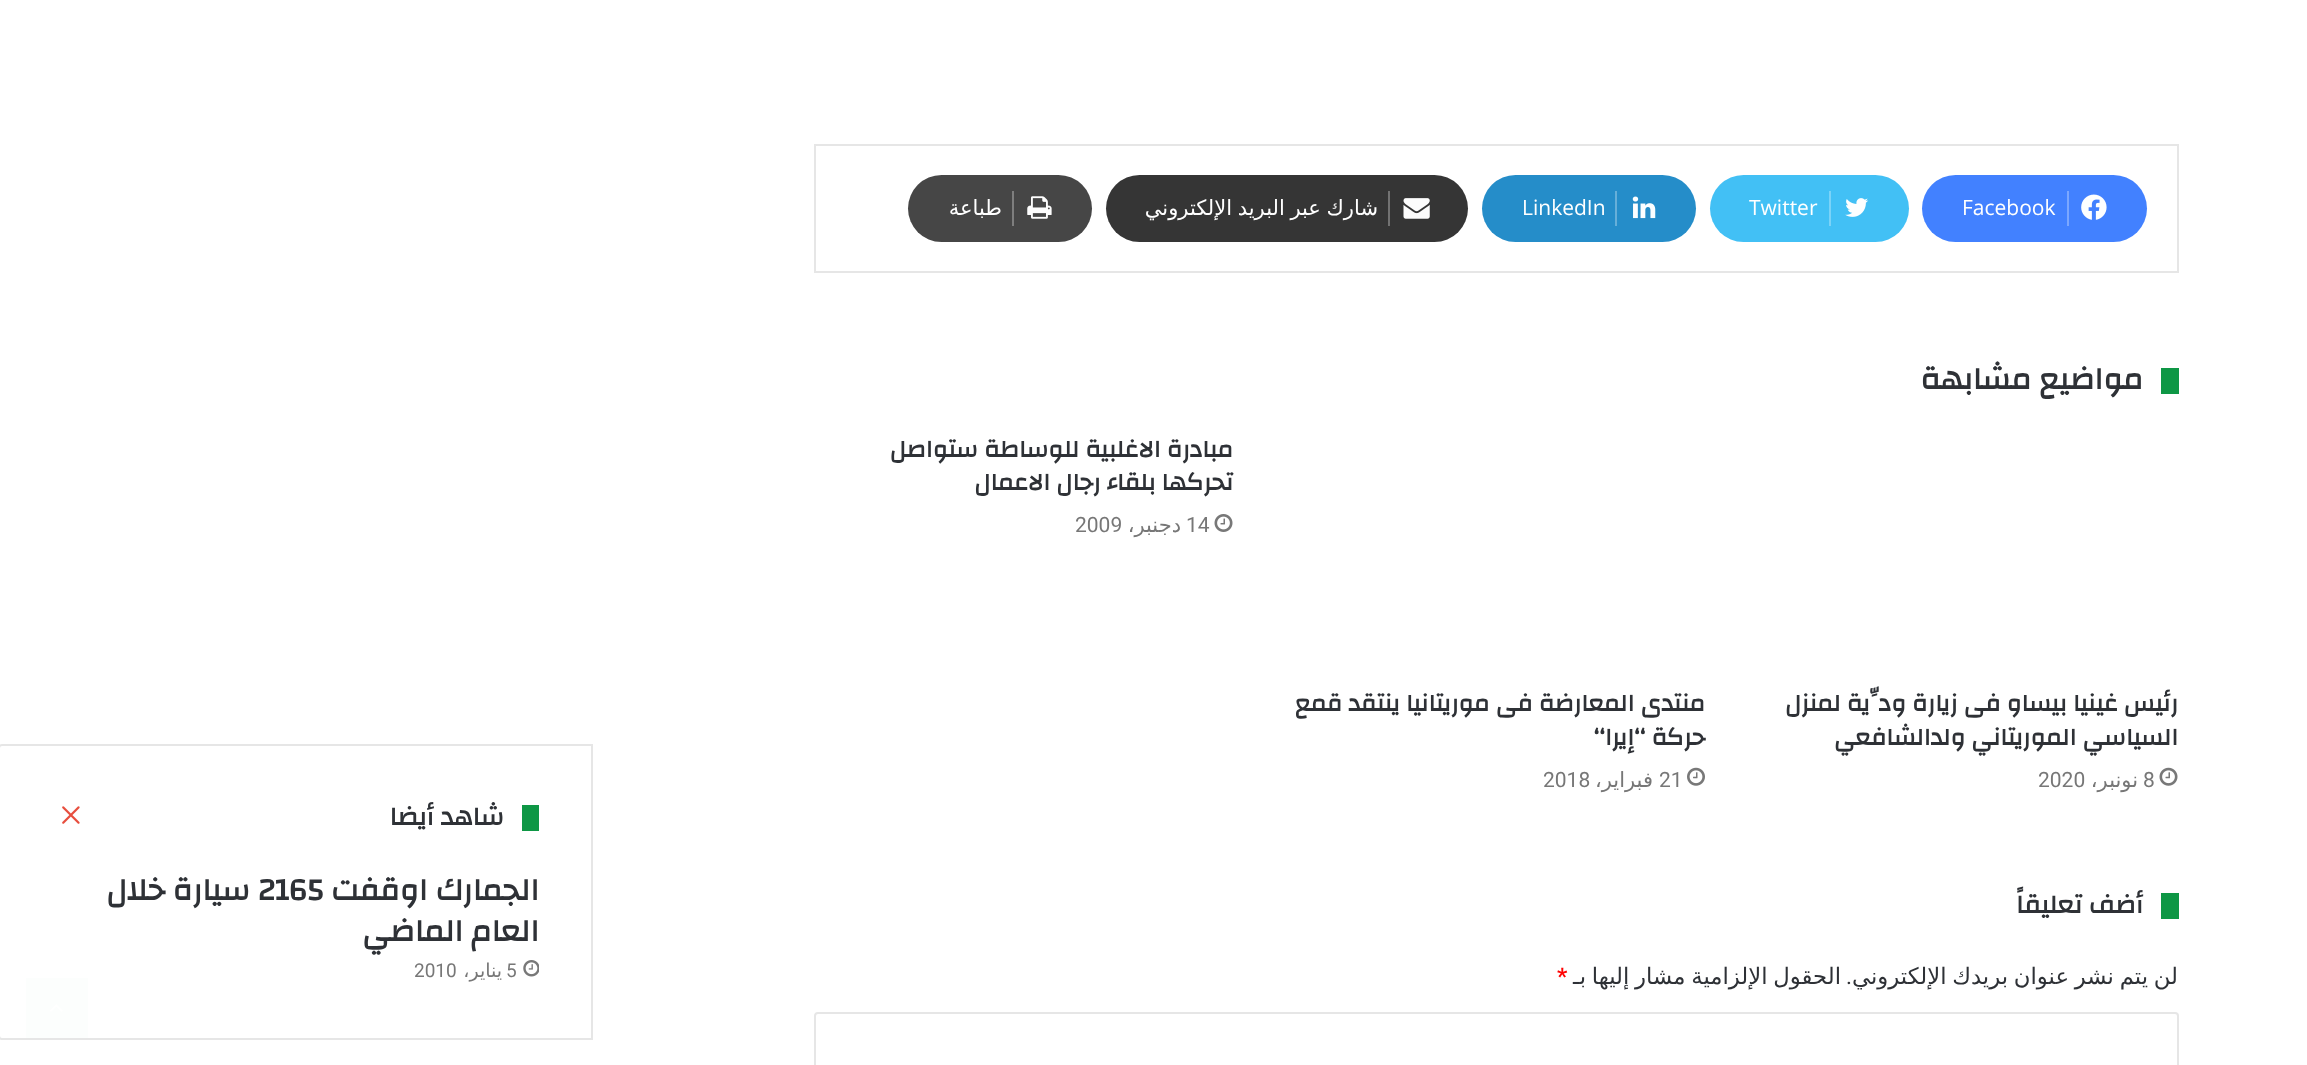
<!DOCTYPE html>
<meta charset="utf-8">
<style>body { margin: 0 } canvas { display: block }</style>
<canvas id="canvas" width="2307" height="1065"></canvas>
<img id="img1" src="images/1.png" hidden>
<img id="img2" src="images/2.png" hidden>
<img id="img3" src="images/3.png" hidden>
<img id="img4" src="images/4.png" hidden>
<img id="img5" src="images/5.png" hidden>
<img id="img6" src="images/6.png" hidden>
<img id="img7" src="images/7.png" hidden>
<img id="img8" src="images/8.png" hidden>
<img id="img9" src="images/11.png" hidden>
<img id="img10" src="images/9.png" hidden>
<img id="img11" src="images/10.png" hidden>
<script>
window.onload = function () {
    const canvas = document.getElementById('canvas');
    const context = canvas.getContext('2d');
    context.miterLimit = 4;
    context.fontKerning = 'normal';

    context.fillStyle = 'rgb(255, 255, 255)';
    context.fillRect(0, 0, 2307, 1065);
    context.strokeStyle = 'rgb(230, 230, 230)';
    context.lineWidth = 2;
    context.strokeRect(815, 145, 1363, 127);
    context.fillStyle = 'rgb(66, 129, 255)';
    context.beginPath();
    context.roundRect(1922, 175, 225, 67, 33.5);
    context.fill();
    context.drawImage(document.getElementById('img1'), 2081, 194, 26, 26);
    context.fillStyle = 'rgb(123, 167, 255)';
    context.fillRect(2067, 191, 2, 35);
    context.fillStyle = 'rgb(66, 192, 245)';
    context.beginPath();
    context.roundRect(1710, 175, 199, 67, 33.5);
    context.fill();
    context.drawImage(document.getElementById('img2'), 1845, 198, 24, 19);
    context.fillStyle = 'rgb(123, 211, 248)';
    context.fillRect(1829, 191, 2, 35);
    context.fillStyle = 'rgb(37, 141, 201)';
    context.beginPath();
    context.roundRect(1482, 175, 214, 67, 33.5);
    context.fill();
    context.drawImage(document.getElementById('img3'), 1632, 196, 24, 23);
    context.fillStyle = 'rgb(102, 175, 217)';
    context.fillRect(1615, 191, 2, 35);
    context.fillStyle = 'rgb(53, 53, 53)';
    context.beginPath();
    context.roundRect(1106, 175, 362, 67, 33.5);
    context.fill();
    context.drawImage(document.getElementById('img4'), 1403, 198, 27, 21);
    context.fillStyle = 'rgb(114, 114, 114)';
    context.fillRect(1388, 191, 2, 35);
    context.fillStyle = 'rgb(70, 70, 70)';
    context.beginPath();
    context.roundRect(908, 175, 184, 67, 33.5);
    context.fill();
    context.drawImage(document.getElementById('img5'), 1027, 196, 25, 23);
    context.fillStyle = 'rgb(126, 126, 126)';
    context.fillRect(1012, 191, 2, 35);
    context.fillStyle = 'rgb(14, 151, 69)';
    context.fillRect(2161, 368, 18, 26);
    context.drawImage(document.getElementById('img6'), 1214, 514, 19, 18);
    context.drawImage(document.getElementById('img7'), 2159, 767, 19, 19);
    context.drawImage(document.getElementById('img8'), 1687, 767, 18, 19);
    context.fillRect(2161, 893, 18, 26);
    context.beginPath();
    context.roundRect(815, 1013, 1363, 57, 3);
    context.stroke();
    context.fillStyle = 'rgb(12, 150, 67)';
    context.fillRect(26, 978, 62, 60);
    context.drawImage(document.getElementById('img9'), 50, 1004, 13, 8);
    context.fillStyle = 'rgba(255, 255, 255, 0.99)';
    context.beginPath();
    context.moveTo(2, 745);
    context.lineTo(592, 745);
    context.lineTo(592, 1039);
    context.lineTo(2, 1039);
    context.bezierCurveTo(0.5, 1039, -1, 1037.5, -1, 1036);
    context.lineTo(-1, 748);
    context.bezierCurveTo(-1, 746.5, 0.5, 745, 2, 745);
    context.closePath();
    context.fill();
    context.stroke();
    context.fillStyle = 'rgb(14, 151, 69)';
    context.fillRect(522, 805, 17, 26);
    context.drawImage(document.getElementById('img10'), 62, 806, 18, 18);
    context.drawImage(document.getElementById('img11'), 523, 960, 16, 17);
    context.font = '21px Open Sans';
    context.fillStyle = 'rgb(255, 255, 255)';
    context.fillText('Facebook', 1962, 215);
    context.fillText('Twitter', 1749, 215);
    context.fillText('LinkedIn', 1522, 215);
    context.wordSpacing = '-1px';
    context.direction = 'rtl';
    context.font = '21px DejaVu Sans';
    context.fillText('شارك عبر البريد الإلكتروني', 1378, 215);
    context.wordSpacing = '0px';
    context.fillText('طباعة', 1002, 215);
    context.font = 'bold 31.5px Changa';
    context.fillStyle = 'rgb(46, 49, 54)';
    context.fillText('مواضيع مشابهة', 2143, 389);
    context.font = 'bold 24.5px Changa';
    context.fillText('مبادرة الاغلبية للوساطة ستواصل', 1233, 457);
    context.fillText('تحركها بلقاء رجال الاعمال', 1233, 490);
    context.direction = 'ltr';
    context.font = '21px Roboto';
    context.fillStyle = 'rgb(119, 119, 119)';
    context.fillText('14', 1186, 532);
    context.direction = 'rtl';
    context.font = '21px DejaVu Sans';
    context.fillText('دجنبر،', 1181, 532);
    context.direction = 'ltr';
    context.font = '21px Roboto';
    context.fillText('2009', 1075, 532);
    context.direction = 'rtl';
    context.font = 'bold 24.5px Changa';
    context.fillStyle = 'rgb(46, 49, 54)';
    context.fillText('رئيس غينيا بيساو فى زيارة ودِّية لمنزل', 2178, 711);
    context.fillText('السياسي الموريتاني ولدالشافعي', 2178, 745);
    context.direction = 'ltr';
    context.font = '21px Roboto';
    context.fillStyle = 'rgb(119, 119, 119)';
    context.fillText('8', 2143, 787);
    context.direction = 'rtl';
    context.font = '21px DejaVu Sans';
    context.fillText('نونبر،', 2138, 787);
    context.direction = 'ltr';
    context.font = '21px Roboto';
    context.fillText('2020', 2038, 787);
    context.direction = 'rtl';
    context.font = 'bold 24.5px Changa';
    context.fillStyle = 'rgb(46, 49, 54)';
    context.fillText('منتدى المعارضة فى موريتانيا ينتقد قمع', 1705, 711);
    context.fillText('حركة ‘‘إيرا‘‘', 1705, 745);
    context.direction = 'ltr';
    context.font = '21px Roboto';
    context.fillStyle = 'rgb(119, 119, 119)';
    context.fillText('21', 1659, 787);
    context.direction = 'rtl';
    context.font = '21px DejaVu Sans';
    context.fillText('فبراير،', 1653, 787);
    context.direction = 'ltr';
    context.font = '21px Roboto';
    context.fillText('2018', 1543, 787);
    context.direction = 'rtl';
    context.font = 'bold 26.25px Changa';
    context.fillStyle = 'rgb(46, 49, 54)';
    context.fillText('أضف تعليقاً', 2143, 913);
    context.wordSpacing = '-1.5px';
    context.font = '22.75px DejaVu Sans';
    context.fillText('لن يتم نشر عنوان بريدك الإلكتروني', 2178, 984);
    context.fillText('الحقول الإلزامية مشار إليها بـ', 1841, 984);
    context.wordSpacing = '0px';
    context.direction = 'ltr';
    context.font = 'bold 22.75px Roboto';
    context.fillStyle = 'rgb(255, 3, 3)';
    context.fillText('*', 1557, 984);
    context.direction = 'rtl';
    context.font = '22.75px Roboto';
    context.fillStyle = 'rgb(46, 49, 54)';
    context.fillText('.', 1852, 984);
    context.font = 'bold 26.25px Changa';
    context.fillText('شاهد أيضا', 504, 825);
    context.font = 'bold 31.5px Changa';
    context.fillText('الجمارك اوقفت', 539, 900);
    context.direction = 'ltr';
    context.fillText('2165', 258, 900);
    context.direction = 'rtl';
    context.fillText('سيارة خلال', 250, 900);
    context.fillText('العام الماضي', 539, 941);
    context.direction = 'ltr';
    context.font = '19px Roboto';
    context.fillStyle = 'rgb(119, 119, 119)';
    context.fillText('5', 506, 977);
    context.direction = 'rtl';
    context.font = '19px DejaVu Sans';
    context.fillText('يناير،', 502, 977);
    context.direction = 'ltr';
    context.font = '19px Roboto';
    context.fillText('2010', 414, 977);
};
</script>
